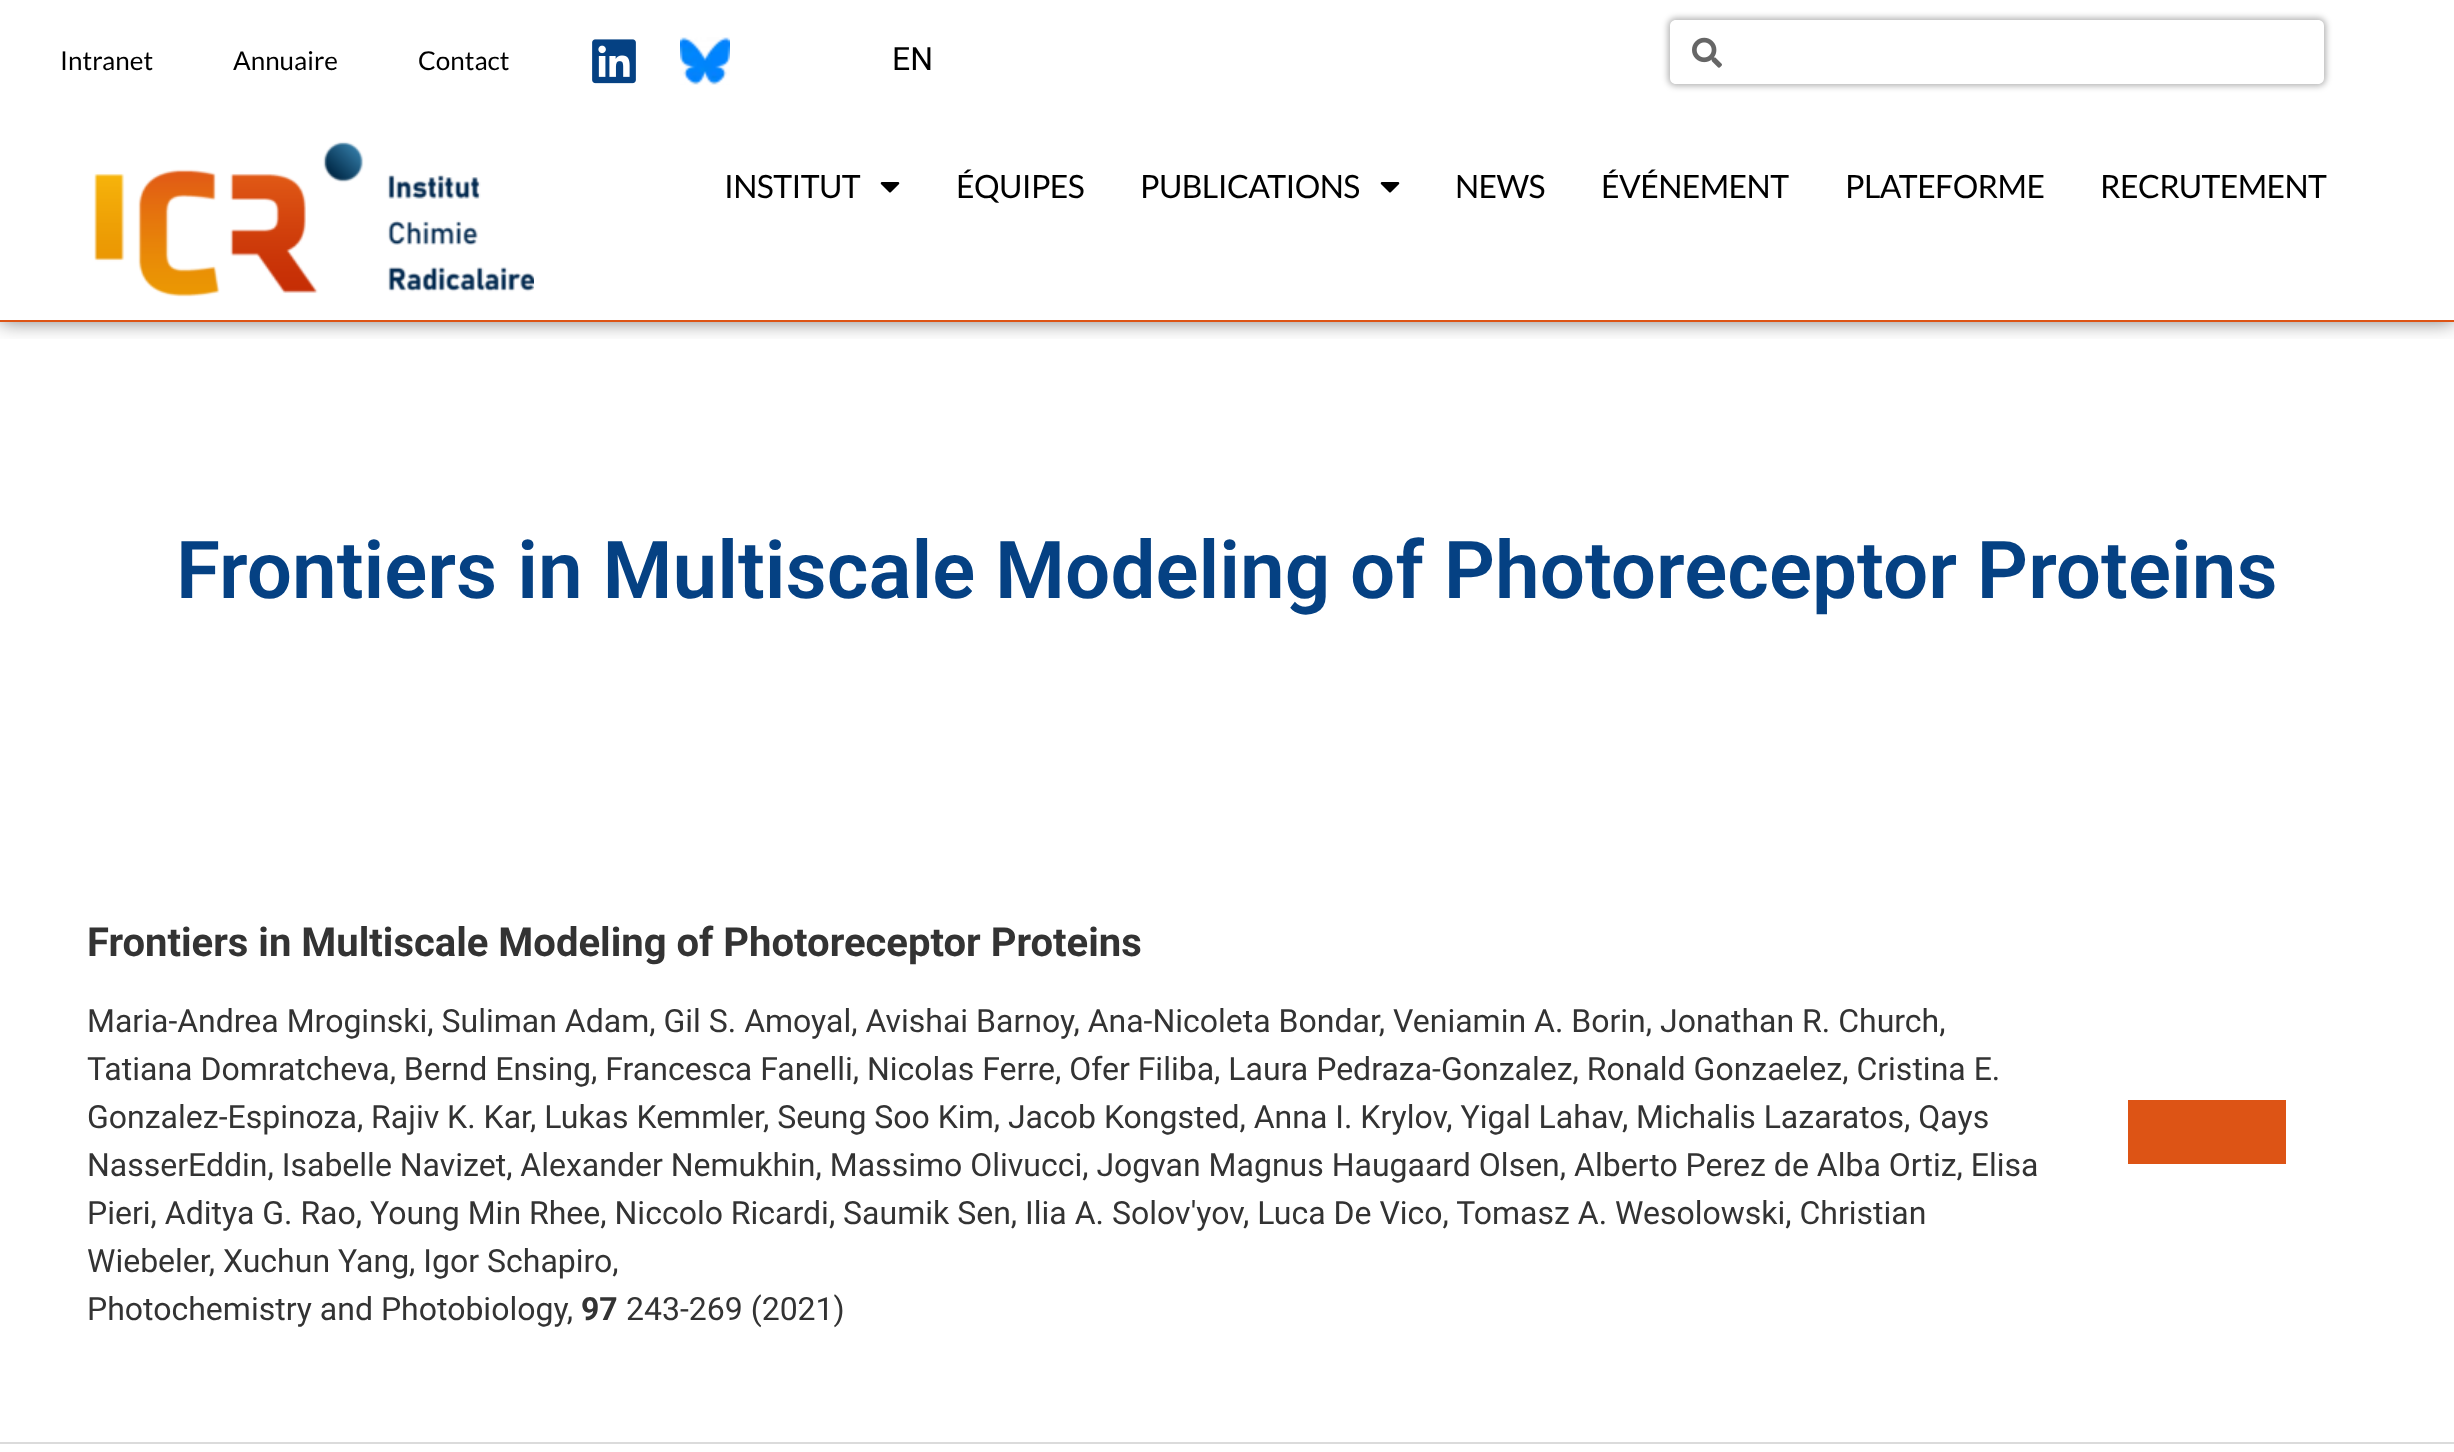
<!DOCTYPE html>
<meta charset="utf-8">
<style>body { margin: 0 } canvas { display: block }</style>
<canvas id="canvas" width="2454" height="1452"></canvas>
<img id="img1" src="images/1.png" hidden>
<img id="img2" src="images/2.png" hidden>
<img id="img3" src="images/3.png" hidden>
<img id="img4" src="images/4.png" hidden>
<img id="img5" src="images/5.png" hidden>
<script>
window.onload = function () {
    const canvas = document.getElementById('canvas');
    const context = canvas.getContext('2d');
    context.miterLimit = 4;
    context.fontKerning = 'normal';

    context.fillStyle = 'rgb(255, 255, 255)';
    context.fillRect(0, 0, 2454, 1452);
    context.save();
    context.beginPath();
    context.rect(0, 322, 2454, 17);
    context.clip();
    context.fillStyle = 'rgba(0, 0, 0, 0.5)';
    context.filter = 'blur(10px)';
    context.beginPath();
    context.rect(0, 0, 2454, 322);
    context.fill();
    context.filter = 'none';
    context.restore();
    context.fillStyle = 'rgb(221, 84, 21)';
    context.fillRect(0, 320, 2454, 2);
    context.drawImage(document.getElementById('img1'), 592, 39, 44, 45);
    context.drawImage(document.getElementById('img2'), 680, 37, 50, 48);
    context.save();
    context.beginPath();
    context.moveTo(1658, 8);
    context.lineTo(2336, 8);
    context.lineTo(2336, 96);
    context.lineTo(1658, 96);
    context.closePath();
    context.moveTo(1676, 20);
    context.lineTo(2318, 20);
    context.bezierCurveTo(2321.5, 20, 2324, 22.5, 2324, 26);
    context.lineTo(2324, 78);
    context.bezierCurveTo(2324, 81.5, 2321.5, 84, 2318, 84);
    context.lineTo(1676, 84);
    context.bezierCurveTo(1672.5, 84, 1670, 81.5, 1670, 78);
    context.lineTo(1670, 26);
    context.bezierCurveTo(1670, 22.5, 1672.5, 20, 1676, 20);
    context.closePath();
    context.clip('evenodd');
    context.fillStyle = 'rgba(0, 0, 0, 0.3)';
    context.filter = 'blur(3px)';
    context.beginPath();
    context.roundRect(1668, 18, 658, 68, 8);
    context.fill();
    context.filter = 'none';
    context.restore();
    context.drawImage(document.getElementById('img3'), 1692, 37, 30, 31);
    context.drawImage(document.getElementById('img4'), 94, 141, 440, 156);
    context.drawImage(document.getElementById('img5'), 880, 182, 20, 11);
    context.drawImage(document.getElementById('img5'), 1380, 182, 20, 11);
    context.fillRect(2128, 1100, 158, 64);
    context.fillStyle = 'rgb(219, 219, 219)';
    context.fillRect(0, 1442, 2454, 2);
    context.font = '26px Lato';
    context.fillStyle = 'rgb(0, 0, 0)';
    context.fillText('Intranet', 60, 70);
    context.fillText('Annuaire', 233, 70);
    context.fillText('Contact', 418, 70);
    context.font = '32px Roboto';
    context.fillText('EN', 892, 70);
    context.letterSpacing = '-0.6px';
    context.font = '32px Lato';
    context.fillText('INSTITUT', 724, 198);
    context.fillText('ÉQUIPES', 956, 198);
    context.fillText('PUBLICATIONS', 1140, 198);
    context.fillText('NEWS', 1455, 198);
    context.fillText('ÉVÉNEMENT', 1601, 198);
    context.fillText('PLATEFORME', 1845, 198);
    context.fillText('RECRUTEMENT', 2100, 198);
    context.letterSpacing = '0px';
    context.font = '600 80px Roboto';
    context.fillStyle = 'rgb(5, 65, 131)';
    context.fillText('Frontiers in Multiscale Modeling of Photoreceptor Proteins', 176, 598);
    context.font = 'bold 40px Roboto';
    context.fillStyle = 'rgb(51, 51, 51)';
    context.fillText('Frontiers in Multiscale Modeling of Photoreceptor Proteins', 87, 956);
    context.font = '32px Roboto';
    context.fillText('Maria-Andrea Mroginski, Suliman Adam, Gil S. Amoyal, Avishai Barnoy, Ana-Nicoleta Bondar, Veniamin A. Borin, Jonathan R. Church,', 87, 1032);
    context.fillText('Tatiana Domratcheva, Bernd Ensing, Francesca Fanelli, Nicolas Ferre, Ofer Filiba, Laura Pedraza-Gonzalez, Ronald Gonzaelez, Cristina E.', 87, 1080);
    context.fillText('Gonzalez-Espinoza, Rajiv K. Kar, Lukas Kemmler, Seung Soo Kim, Jacob Kongsted, Anna I. Krylov, Yigal Lahav, Michalis Lazaratos, Qays', 87, 1128);
    context.fillText('NasserEddin, Isabelle Navizet, Alexander Nemukhin, Massimo Olivucci, Jogvan Magnus Haugaard Olsen, Alberto Perez de Alba Ortiz, Elisa', 87, 1176);
    context.fillText('Pieri, Aditya G. Rao, Young Min Rhee, Niccolo Ricardi, Saumik Sen, Ilia A. Solov\'yov, Luca De Vico, Tomasz A. Wesolowski, Christian', 87, 1224);
    context.fillText('Wiebeler, Xuchun Yang, Igor Schapiro,', 87, 1272);
    context.fillText('Photochemistry and Photobiology,', 87, 1320);
    context.font = 'bold 32px Roboto';
    context.fillText('97', 581, 1320);
    context.font = '32px Roboto';
    context.fillText('243-269 (2021)', 626, 1320);
};
</script>
